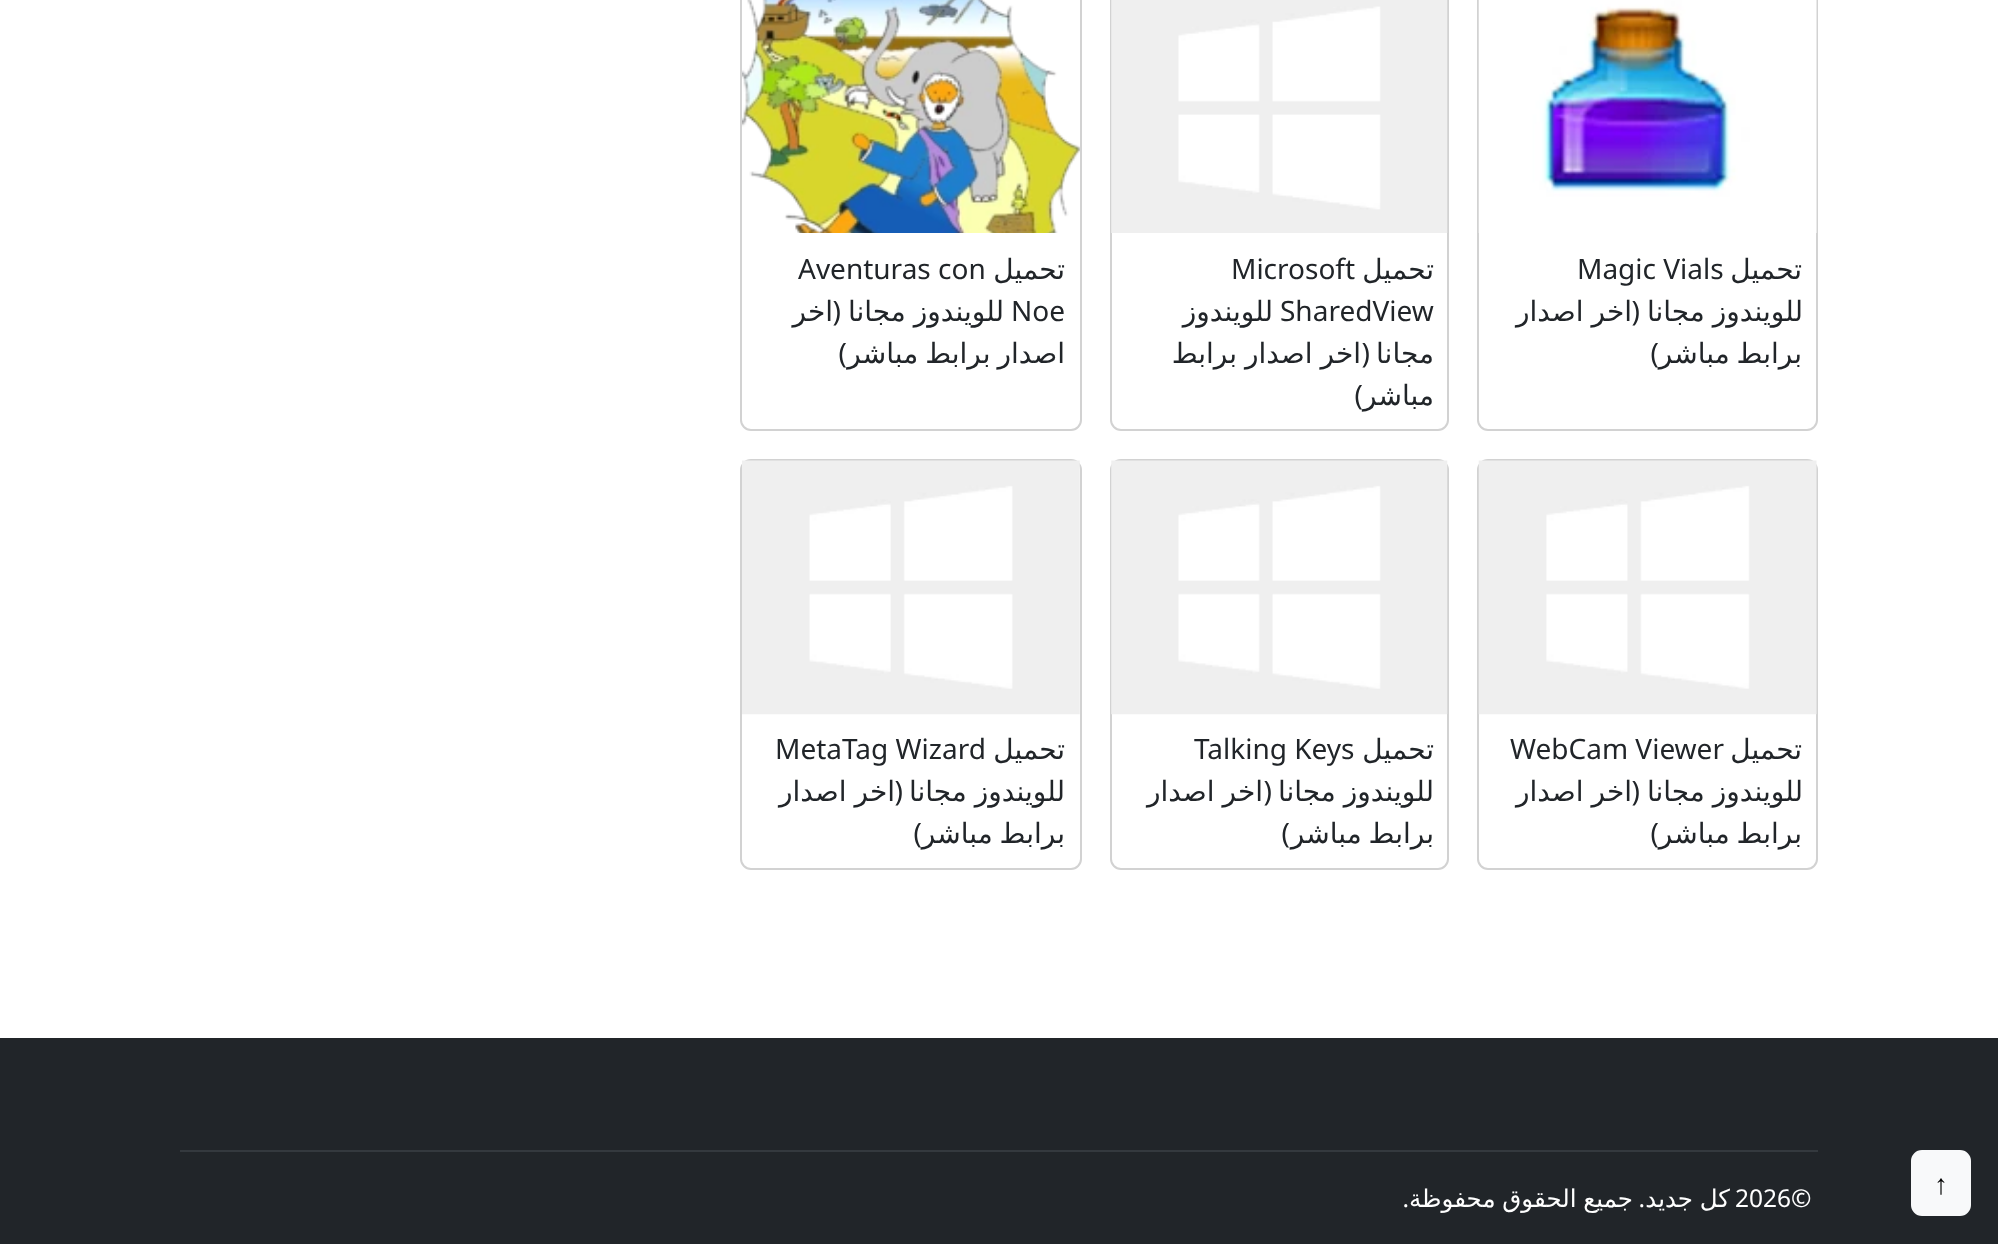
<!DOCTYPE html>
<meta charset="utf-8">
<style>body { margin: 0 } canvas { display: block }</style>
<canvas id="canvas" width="1998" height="1244"></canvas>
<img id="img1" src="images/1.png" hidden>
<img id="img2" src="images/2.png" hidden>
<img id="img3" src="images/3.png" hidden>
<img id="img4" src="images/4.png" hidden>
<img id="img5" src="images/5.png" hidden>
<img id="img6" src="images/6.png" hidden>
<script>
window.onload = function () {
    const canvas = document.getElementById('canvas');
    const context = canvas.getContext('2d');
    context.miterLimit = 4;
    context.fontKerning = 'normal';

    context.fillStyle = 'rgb(255, 255, 255)';
    context.fillRect(0, 0, 1998, 1244);
    context.beginPath();
    context.roundRect(1478, -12, 339, 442, 10);
    context.strokeStyle = 'rgb(210, 210, 210)';
    context.lineWidth = 2;
    context.stroke();
    context.drawImage(document.getElementById('img1'), 1478, 0, 339, 233);
    context.beginPath();
    context.roundRect(1111, -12, 337, 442, 10);
    context.stroke();
    context.drawImage(document.getElementById('img2'), 1111, 0, 337, 233);
    context.beginPath();
    context.roundRect(741, -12, 340, 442, 10);
    context.stroke();
    context.drawImage(document.getElementById('img3'), 742, 0, 338, 233);
    context.beginPath();
    context.roundRect(1478, 460, 339, 409, 10);
    context.stroke();
    context.drawImage(document.getElementById('img4'), 1478, 460, 339, 255);
    context.beginPath();
    context.roundRect(1111, 460, 337, 409, 10);
    context.stroke();
    context.drawImage(document.getElementById('img5'), 1111, 460, 337, 255);
    context.beginPath();
    context.roundRect(741, 460, 340, 409, 10);
    context.stroke();
    context.drawImage(document.getElementById('img6'), 742, 460, 338, 255);
    context.fillStyle = 'rgb(33, 37, 41)';
    context.fillRect(0, 1038, 1998, 206);
    context.fillStyle = 'rgb(248, 249, 250)';
    context.beginPath();
    context.roundRect(1912, 1151, 58, 64, 10);
    context.fill();
    context.strokeStyle = 'rgb(248, 249, 250)';
    context.stroke();
    context.fillStyle = 'rgb(52, 57, 62)';
    context.fillRect(180, 1150, 1638, 2);
    context.direction = 'rtl';
    context.font = '28px DejaVu Sans';
    context.fillStyle = 'rgb(33, 37, 41)';
    context.fillText('تحميل', 1802, 279);
    context.direction = 'ltr';
    context.font = '28px Noto Sans';
    context.fillText('Magic Vials', 1577, 279);
    context.wordSpacing = '-1px';
    context.direction = 'rtl';
    context.font = '28px DejaVu Sans';
    context.fillText('للويندوز مجانا', 1803, 321);
    context.wordSpacing = '0px';
    context.font = '28px Noto Sans';
    context.fillText('(', 1640, 321);
    context.wordSpacing = '-1px';
    context.font = '28px DejaVu Sans';
    context.fillText('اخر اصدار', 1632, 321);
    context.wordSpacing = '0px';
    context.font = '28px Noto Sans';
    context.fillText(')', 1659, 363);
    context.wordSpacing = '-2px';
    context.font = '28px DejaVu Sans';
    context.fillText('برابط مباشر', 1802, 363);
    context.wordSpacing = '0px';
    context.fillText('تحميل', 1434, 279);
    context.direction = 'ltr';
    context.font = '28px Noto Sans';
    context.fillText('Microsoft', 1231, 279);
    context.fillText('SharedView', 1280, 321);
    context.direction = 'rtl';
    context.font = '28px DejaVu Sans';
    context.fillText('للويندوز', 1273, 321);
    context.fillText('مجانا', 1434, 363);
    context.font = '28px Noto Sans';
    context.fillText('(', 1370, 363);
    context.wordSpacing = '-1px';
    context.font = '28px DejaVu Sans';
    context.fillText('اخر اصدار برابط', 1361, 363);
    context.wordSpacing = '0px';
    context.font = '28px Noto Sans';
    context.fillText(')', 1363, 405);
    context.font = '28px DejaVu Sans';
    context.fillText('مباشر', 1434, 405);
    context.fillText('تحميل', 1065, 279);
    context.direction = 'ltr';
    context.font = '28px Noto Sans';
    context.fillText('Aventuras con', 798, 279);
    context.fillText('Noe', 1011, 321);
    context.wordSpacing = '-1px';
    context.direction = 'rtl';
    context.font = '28px DejaVu Sans';
    context.fillText('للويندوز مجانا', 1004, 321);
    context.wordSpacing = '0px';
    context.font = '28px Noto Sans';
    context.fillText('(', 841, 321);
    context.font = '28px DejaVu Sans';
    context.fillText('اخر', 833, 321);
    context.font = '28px Noto Sans';
    context.fillText(')', 847, 363);
    context.wordSpacing = '-2px';
    context.font = '28px DejaVu Sans';
    context.fillText('اصدار برابط مباشر', 1065, 363);
    context.wordSpacing = '0px';
    context.fillText('تحميل', 1802, 759);
    context.direction = 'ltr';
    context.font = '28px Noto Sans';
    context.fillText('WebCam Viewer', 1510, 759);
    context.wordSpacing = '-1px';
    context.direction = 'rtl';
    context.font = '28px DejaVu Sans';
    context.fillText('للويندوز مجانا', 1803, 801);
    context.wordSpacing = '0px';
    context.font = '28px Noto Sans';
    context.fillText('(', 1640, 801);
    context.wordSpacing = '-1px';
    context.font = '28px DejaVu Sans';
    context.fillText('اخر اصدار', 1632, 801);
    context.wordSpacing = '0px';
    context.font = '28px Noto Sans';
    context.fillText(')', 1659, 843);
    context.wordSpacing = '-2px';
    context.font = '28px DejaVu Sans';
    context.fillText('برابط مباشر', 1802, 843);
    context.wordSpacing = '0px';
    context.fillText('تحميل', 1434, 759);
    context.direction = 'ltr';
    context.font = '28px Noto Sans';
    context.fillText('Talking Keys', 1194, 759);
    context.wordSpacing = '-1px';
    context.direction = 'rtl';
    context.font = '28px DejaVu Sans';
    context.fillText('للويندوز مجانا', 1434, 801);
    context.wordSpacing = '0px';
    context.font = '28px Noto Sans';
    context.fillText('(', 1272, 801);
    context.wordSpacing = '-1px';
    context.font = '28px DejaVu Sans';
    context.fillText('اخر اصدار', 1263, 801);
    context.wordSpacing = '0px';
    context.font = '28px Noto Sans';
    context.fillText(')', 1290, 843);
    context.wordSpacing = '-2px';
    context.font = '28px DejaVu Sans';
    context.fillText('برابط مباشر', 1434, 843);
    context.wordSpacing = '0px';
    context.fillText('تحميل', 1065, 759);
    context.direction = 'ltr';
    context.font = '28px Noto Sans';
    context.fillText('MetaTag Wizard', 775, 759);
    context.wordSpacing = '-1px';
    context.direction = 'rtl';
    context.font = '28px DejaVu Sans';
    context.fillText('للويندوز مجانا', 1065, 801);
    context.wordSpacing = '0px';
    context.font = '28px Noto Sans';
    context.fillText('(', 903, 801);
    context.wordSpacing = '-1px';
    context.font = '28px DejaVu Sans';
    context.fillText('اخر اصدار', 895, 801);
    context.wordSpacing = '0px';
    context.font = '28px Noto Sans';
    context.fillText(')', 922, 843);
    context.wordSpacing = '-2px';
    context.font = '28px DejaVu Sans';
    context.fillText('برابط مباشر', 1065, 843);
    context.wordSpacing = '0px';
    context.direction = 'ltr';
    context.font = '28px Liberation Sans';
    context.fillStyle = 'rgb(0, 0, 0)';
    context.fillText('↑', 1934, 1194);
    context.font = '24.5px Noto Sans';
    context.fillStyle = 'rgb(255, 255, 255)';
    context.fillText('2026©', 1735, 1207);
    context.wordSpacing = '-1px';
    context.direction = 'rtl';
    context.font = '24.5px DejaVu Sans';
    context.fillText('كل جديد', 1730, 1207);
    context.wordSpacing = '0px';
    context.font = '24.5px Noto Sans';
    context.fillText('.', 1645, 1207);
    context.wordSpacing = '-1px';
    context.font = '24.5px DejaVu Sans';
    context.fillText('جميع الحقوق محفوظة', 1633, 1207);
    context.wordSpacing = '0px';
    context.font = '24.5px Noto Sans';
    context.fillText('.', 1409, 1207);
};
</script>
